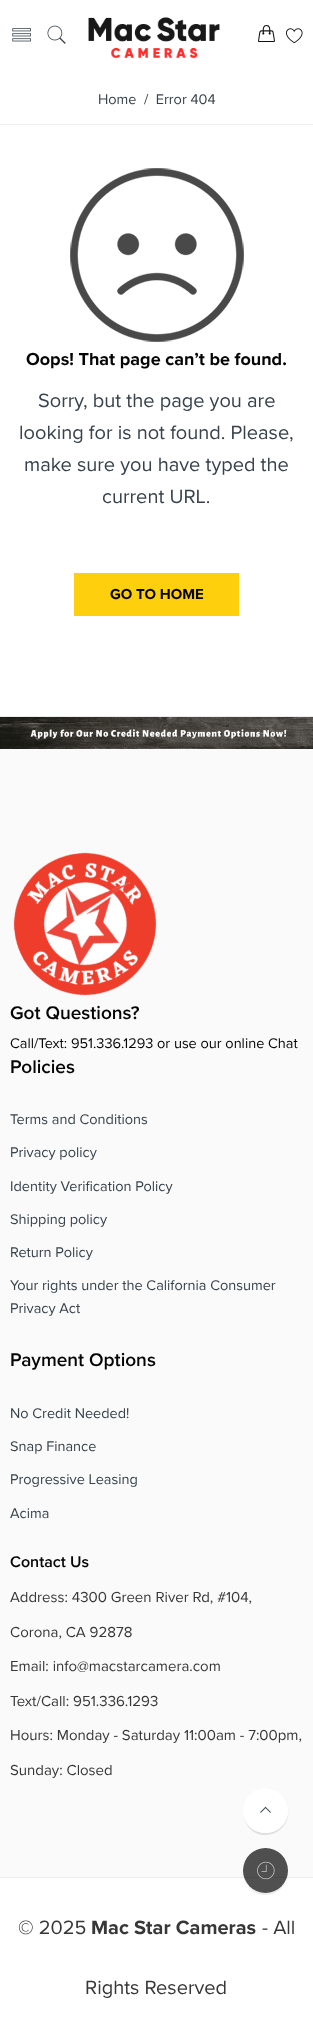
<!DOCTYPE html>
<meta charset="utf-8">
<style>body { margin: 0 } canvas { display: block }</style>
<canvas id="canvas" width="313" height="2033"></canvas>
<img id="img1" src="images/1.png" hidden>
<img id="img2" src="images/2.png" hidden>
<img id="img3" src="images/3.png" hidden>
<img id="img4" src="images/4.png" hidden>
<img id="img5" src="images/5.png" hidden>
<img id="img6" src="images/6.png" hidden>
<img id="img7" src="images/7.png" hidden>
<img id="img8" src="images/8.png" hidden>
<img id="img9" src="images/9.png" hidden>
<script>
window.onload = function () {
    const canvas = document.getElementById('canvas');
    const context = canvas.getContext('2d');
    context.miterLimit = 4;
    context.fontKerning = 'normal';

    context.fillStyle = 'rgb(255, 255, 255)';
    context.fillRect(0, 0, 313, 2033);
    context.drawImage(document.getElementById('img1'), 12, 28, 19, 14);
    context.drawImage(document.getElementById('img2'), 47, 25, 19, 19);
    context.drawImage(document.getElementById('img3'), 88, 17, 132, 42);
    context.drawImage(document.getElementById('img4'), 286, 28, 17, 16);
    context.fillStyle = 'rgb(239, 239, 239)';
    context.fillRect(0, 124, 313, 1);
    context.drawImage(document.getElementById('img5'), 70, 168, 174, 174);
    context.fillStyle = 'rgb(253, 207, 12)';
    context.fillRect(74, 573, 165, 43);
    context.fillStyle = 'rgb(250, 250, 250)';
    context.fillRect(0, 749, 313, 1128);
    context.fillStyle = 'rgb(236, 236, 236)';
    context.fillRect(0, 716, 313, 1);
    context.drawImage(document.getElementById('img6'), 0, 717, 313, 32);
    context.drawImage(document.getElementById('img7'), 13, 852, 144, 144);
    context.fillRect(0, 1877, 313, 1);
    context.beginPath();
    context.arc(266, 1811, 22.75, 0, 2 * Math.PI);
    context.strokeStyle = 'rgb(240, 240, 240)';
    context.lineWidth = 0.5;
    context.stroke();
    context.fillStyle = 'rgba(5, 5, 5, 0.1)';
    context.beginPath();
    context.moveTo(288, 1812);
    context.bezierCurveTo(287, 1840, 244, 1840, 243, 1812);
    context.bezierCurveTo(243, 1816, 244, 1821, 247, 1825);
    context.bezierCurveTo(259, 1844, 289, 1834, 288, 1812);
    context.closePath();
    context.fill();
    context.fillStyle = 'rgb(255, 255, 255)';
    context.beginPath();
    context.arc(265.5, 1810.5, 22.5, 0, 2 * Math.PI);
    context.fill();
    context.drawImage(document.getElementById('img8'), 260, 1806, 11, 7);
    context.fillStyle = 'rgba(5, 5, 5, 0.07)';
    context.beginPath();
    context.moveTo(288, 1872);
    context.bezierCurveTo(287, 1900, 244, 1900, 243, 1872);
    context.bezierCurveTo(243, 1876, 244, 1881, 247, 1885);
    context.bezierCurveTo(259, 1904, 289, 1894, 288, 1872);
    context.closePath();
    context.fill();
    context.fillStyle = 'rgba(5, 5, 5, 0.7)';
    context.beginPath();
    context.arc(265.5, 1870.5, 22.5, 0, 2 * Math.PI);
    context.fill();
    context.drawImage(document.getElementById('img9'), 257, 1861, 18, 19);
    context.font = '17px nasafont';
    context.fillStyle = 'rgb(15, 15, 15)';
    context.fillText('4', 258, 42);
    context.font = '14.5px Proxima Nova';
    context.fillStyle = 'rgb(55, 66, 76)';
    context.fillText('Home', 98, 104);
    context.fillText('/  Error 404', 144, 104);
    context.font = 'bold 18px Proxima Nova';
    context.fillStyle = 'rgb(5, 5, 5)';
    context.fillText('Oops! That page can’t be found.', 26, 365);
    context.font = '20px Proxima Nova';
    context.fillStyle = 'rgb(55, 66, 76)';
    context.fillText('Sorry, but the page you are', 38, 407);
    context.fillText('looking for is not found. Please,', 19, 439);
    context.fillText('make sure you have typed the', 24, 471);
    context.fillText('current URL.', 102, 503);
    context.font = 'bold 15px Proxima Nova';
    context.fillStyle = 'rgb(5, 5, 5)';
    context.fillText('GO TO HOME', 110, 599);
    context.font = '600 19px Proxima Nova';
    context.fillText('Got Questions?', 10, 1019);
    context.font = '14.5px Proxima Nova';
    context.fillText('Call/Text: 951.336.1293 or use our online Chat', 10, 1048);
    context.font = '600 19px Proxima Nova';
    context.fillText('Policies', 10, 1073);
    context.font = '14.5px Proxima Nova';
    context.fillStyle = 'rgb(55, 66, 76)';
    context.fillText('Terms and Conditions', 10, 1124);
    context.fillText('Privacy policy', 10, 1157);
    context.fillText('Identity Verification Policy', 10, 1191);
    context.fillText('Shipping policy', 10, 1224);
    context.fillText('Return Policy', 10, 1257);
    context.fillText('Your rights under the California Consumer', 10, 1290);
    context.fillText('Privacy Act', 10, 1313);
    context.font = '600 19px Proxima Nova';
    context.fillStyle = 'rgb(5, 5, 5)';
    context.fillText('Payment Options', 10, 1366);
    context.font = '14.5px Proxima Nova';
    context.fillStyle = 'rgb(55, 66, 76)';
    context.fillText('No Credit Needed!', 10, 1418);
    context.fillText('Snap Finance', 10, 1451);
    context.fillText('Progressive Leasing', 10, 1484);
    context.fillText('Acima', 10, 1518);
    context.font = '600 16px Proxima Nova';
    context.fillStyle = 'rgb(5, 5, 5)';
    context.fillText('Contact Us', 10, 1567);
    context.font = '15px Proxima Nova';
    context.fillStyle = 'rgb(55, 55, 55)';
    context.fillText('Address: 4300 Green River Rd, #104,', 10, 1602);
    context.fillText('Corona, CA 92878', 10, 1637);
    context.fillText('Email: info@macstarcamera.com', 10, 1671);
    context.fillText('Text/Call: 951.336.1293', 10, 1706);
    context.fillText('Hours: Monday - Saturday 11:00am - 7:00pm,', 10, 1740);
    context.fillText('Sunday: Closed', 10, 1775);
    context.font = '20px Proxima Nova';
    context.fillText('© 2025', 18, 1934);
    context.font = 'bold 20px Proxima Nova';
    context.fillText('Mac Star Cameras', 91, 1934);
    context.font = '20px Proxima Nova';
    context.fillText('- All', 262, 1934);
    context.fillText('Rights Reserved', 85, 1994);
};
</script>
